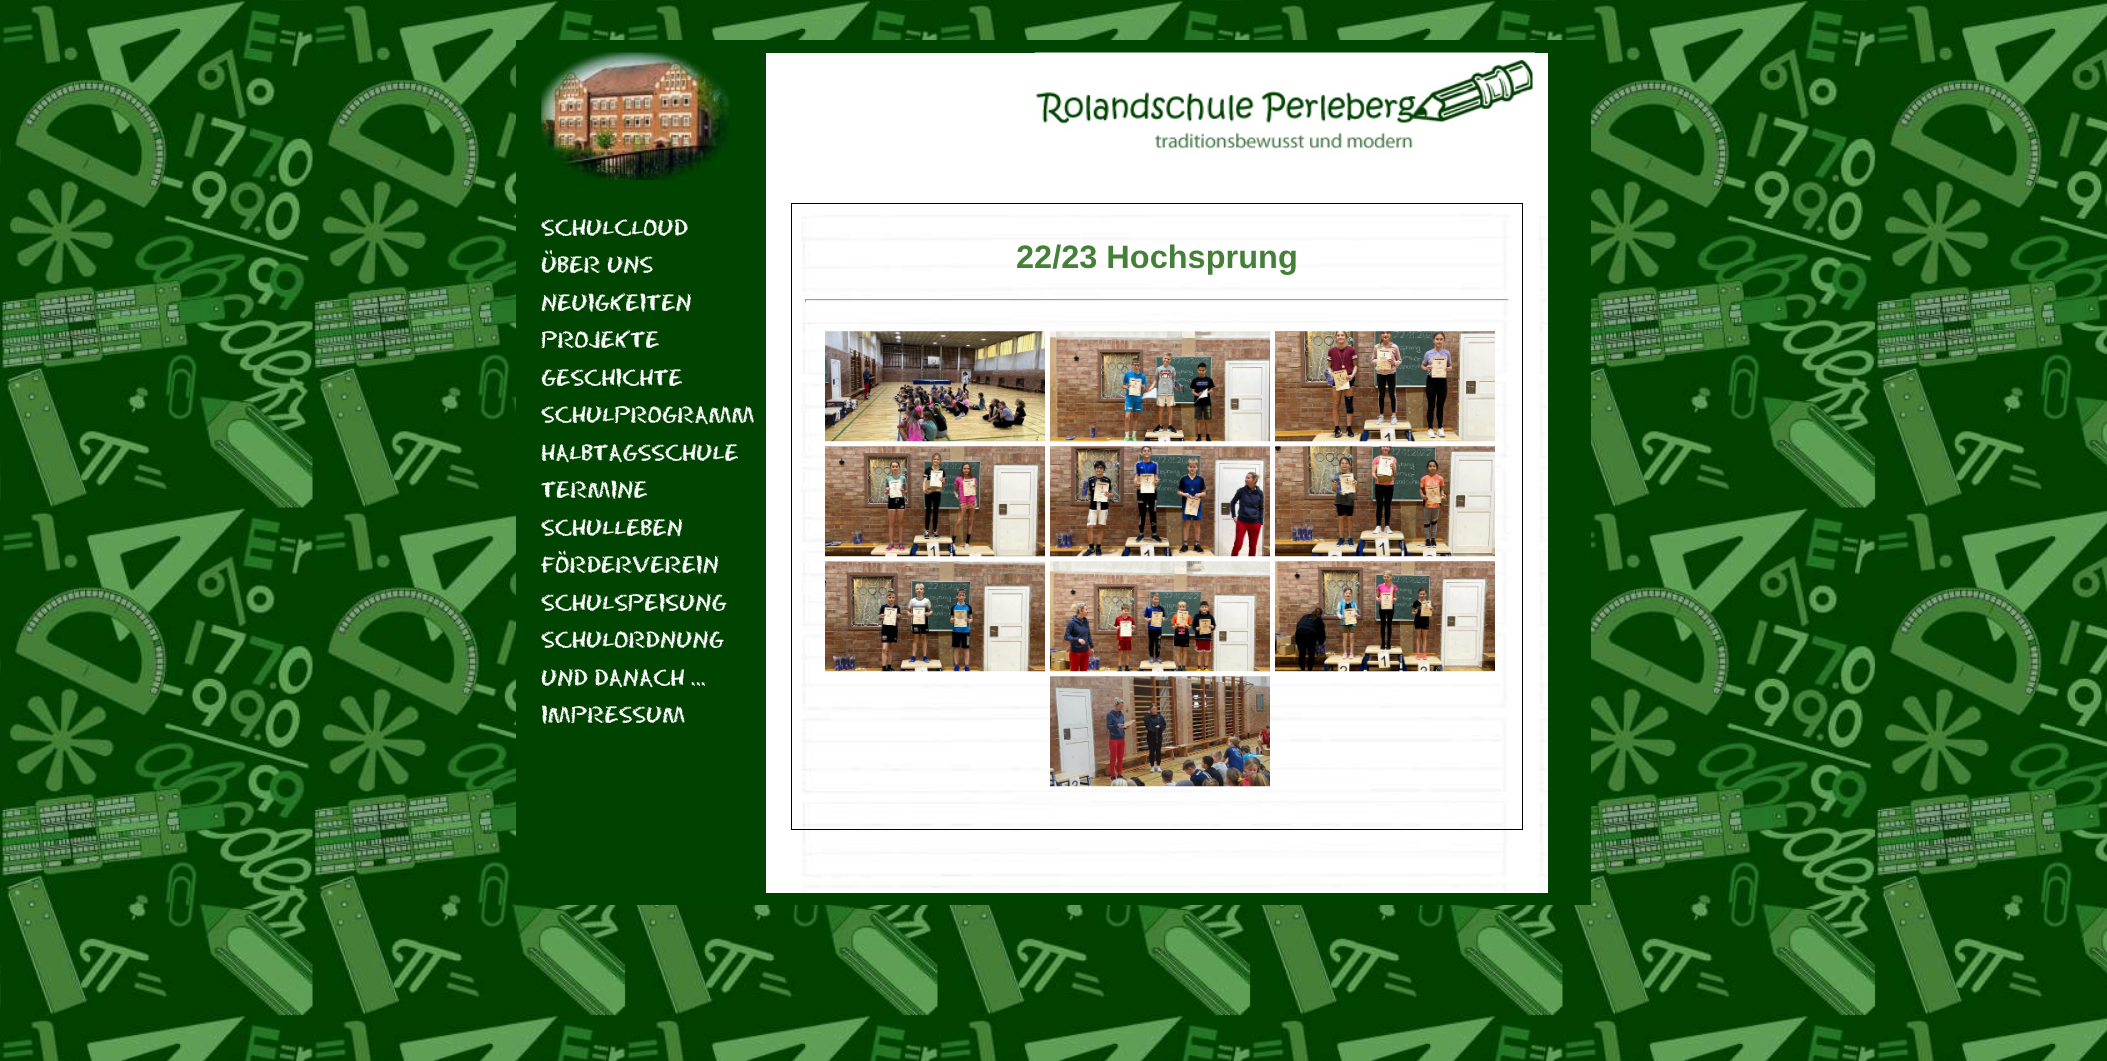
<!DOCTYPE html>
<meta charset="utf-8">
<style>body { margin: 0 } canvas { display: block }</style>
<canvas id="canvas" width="2107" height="1061"></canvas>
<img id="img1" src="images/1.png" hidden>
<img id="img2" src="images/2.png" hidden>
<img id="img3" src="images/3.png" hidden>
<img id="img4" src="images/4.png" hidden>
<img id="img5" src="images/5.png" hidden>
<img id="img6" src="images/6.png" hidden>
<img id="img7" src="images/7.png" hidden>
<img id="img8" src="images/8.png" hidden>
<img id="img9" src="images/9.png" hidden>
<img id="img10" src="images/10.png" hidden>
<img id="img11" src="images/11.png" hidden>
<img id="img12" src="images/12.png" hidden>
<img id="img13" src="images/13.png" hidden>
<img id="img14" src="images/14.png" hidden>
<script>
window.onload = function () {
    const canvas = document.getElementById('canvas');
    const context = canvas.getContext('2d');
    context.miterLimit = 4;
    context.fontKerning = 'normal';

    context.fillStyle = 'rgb(255, 255, 255)';
    context.fillRect(0, 0, 2107, 1061);
    context.drawImage(document.getElementById('img1'), 0, 0, 2107, 1061);
    context.fillStyle = 'rgb(0, 66, 0)';
    context.fillRect(516, 40, 1075, 865);
    context.drawImage(document.getElementById('img2'), 541, 52, 188, 128);
    context.fillStyle = 'rgb(255, 255, 255)';
    context.fillRect(766, 53, 782, 840);
    context.drawImage(document.getElementById('img3'), 1035, 52, 500, 98);
    context.drawImage(document.getElementById('img4'), 801, 214, 747, 679);
    context.strokeStyle = 'rgb(0, 0, 0)';
    context.strokeRect(791.5, 203.5, 731, 626);
    context.fillStyle = 'rgb(159, 159, 159)';
    context.fillRect(805, 299, 704, 1);
    context.fillStyle = 'rgb(238, 238, 238)';
    context.fillRect(1508, 299, 1, 3);
    context.fillRect(805, 300, 704, 1);
    context.fillStyle = 'rgb(159, 159, 159)';
    context.fillRect(805, 299, 1, 3);
    context.drawImage(document.getElementById('img5'), 825, 331, 220, 111);
    context.drawImage(document.getElementById('img6'), 1050, 331, 220, 111);
    context.drawImage(document.getElementById('img7'), 1275, 331, 220, 111);
    context.drawImage(document.getElementById('img8'), 825, 446, 220, 111);
    context.drawImage(document.getElementById('img9'), 1050, 446, 220, 111);
    context.drawImage(document.getElementById('img10'), 1275, 446, 220, 111);
    context.drawImage(document.getElementById('img11'), 825, 561, 220, 111);
    context.drawImage(document.getElementById('img12'), 1050, 561, 220, 111);
    context.drawImage(document.getElementById('img13'), 1275, 561, 220, 111);
    context.drawImage(document.getElementById('img14'), 1050, 676, 220, 111);
    context.font = '24.4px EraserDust';
    context.fillStyle = 'rgb(255, 255, 255)';
    context.fillText('SCHULCLOUD', 541, 236);
    context.fillText('ÜBER UNS', 541, 273);
    context.fillText('NEUIGKEITEN', 541, 311);
    context.fillText('PROJEKTE', 541, 348);
    context.fillText('GESCHICHTE', 541, 386);
    context.fillText('SCHULPROGRAMM', 541, 423);
    context.fillText('HALBTAGSSCHULE', 541, 461);
    context.fillText('TERMINE', 541, 498);
    context.fillText('SCHULLEBEN', 541, 536);
    context.fillText('FÖRDERVEREIN', 541, 573);
    context.fillText('SCHULSPEISUNG', 541, 611);
    context.fillText('SCHULORDNUNG', 541, 648);
    context.fillText('UND DANACH …', 541, 686);
    context.fillText('IMPRESSUM', 541, 723);
    context.font = 'bold 32.5px Liberation Sans';
    context.fillStyle = 'rgb(68, 128, 56)';
    context.fillText('22/23 Hochsprung', 1016, 268);
};
</script>
